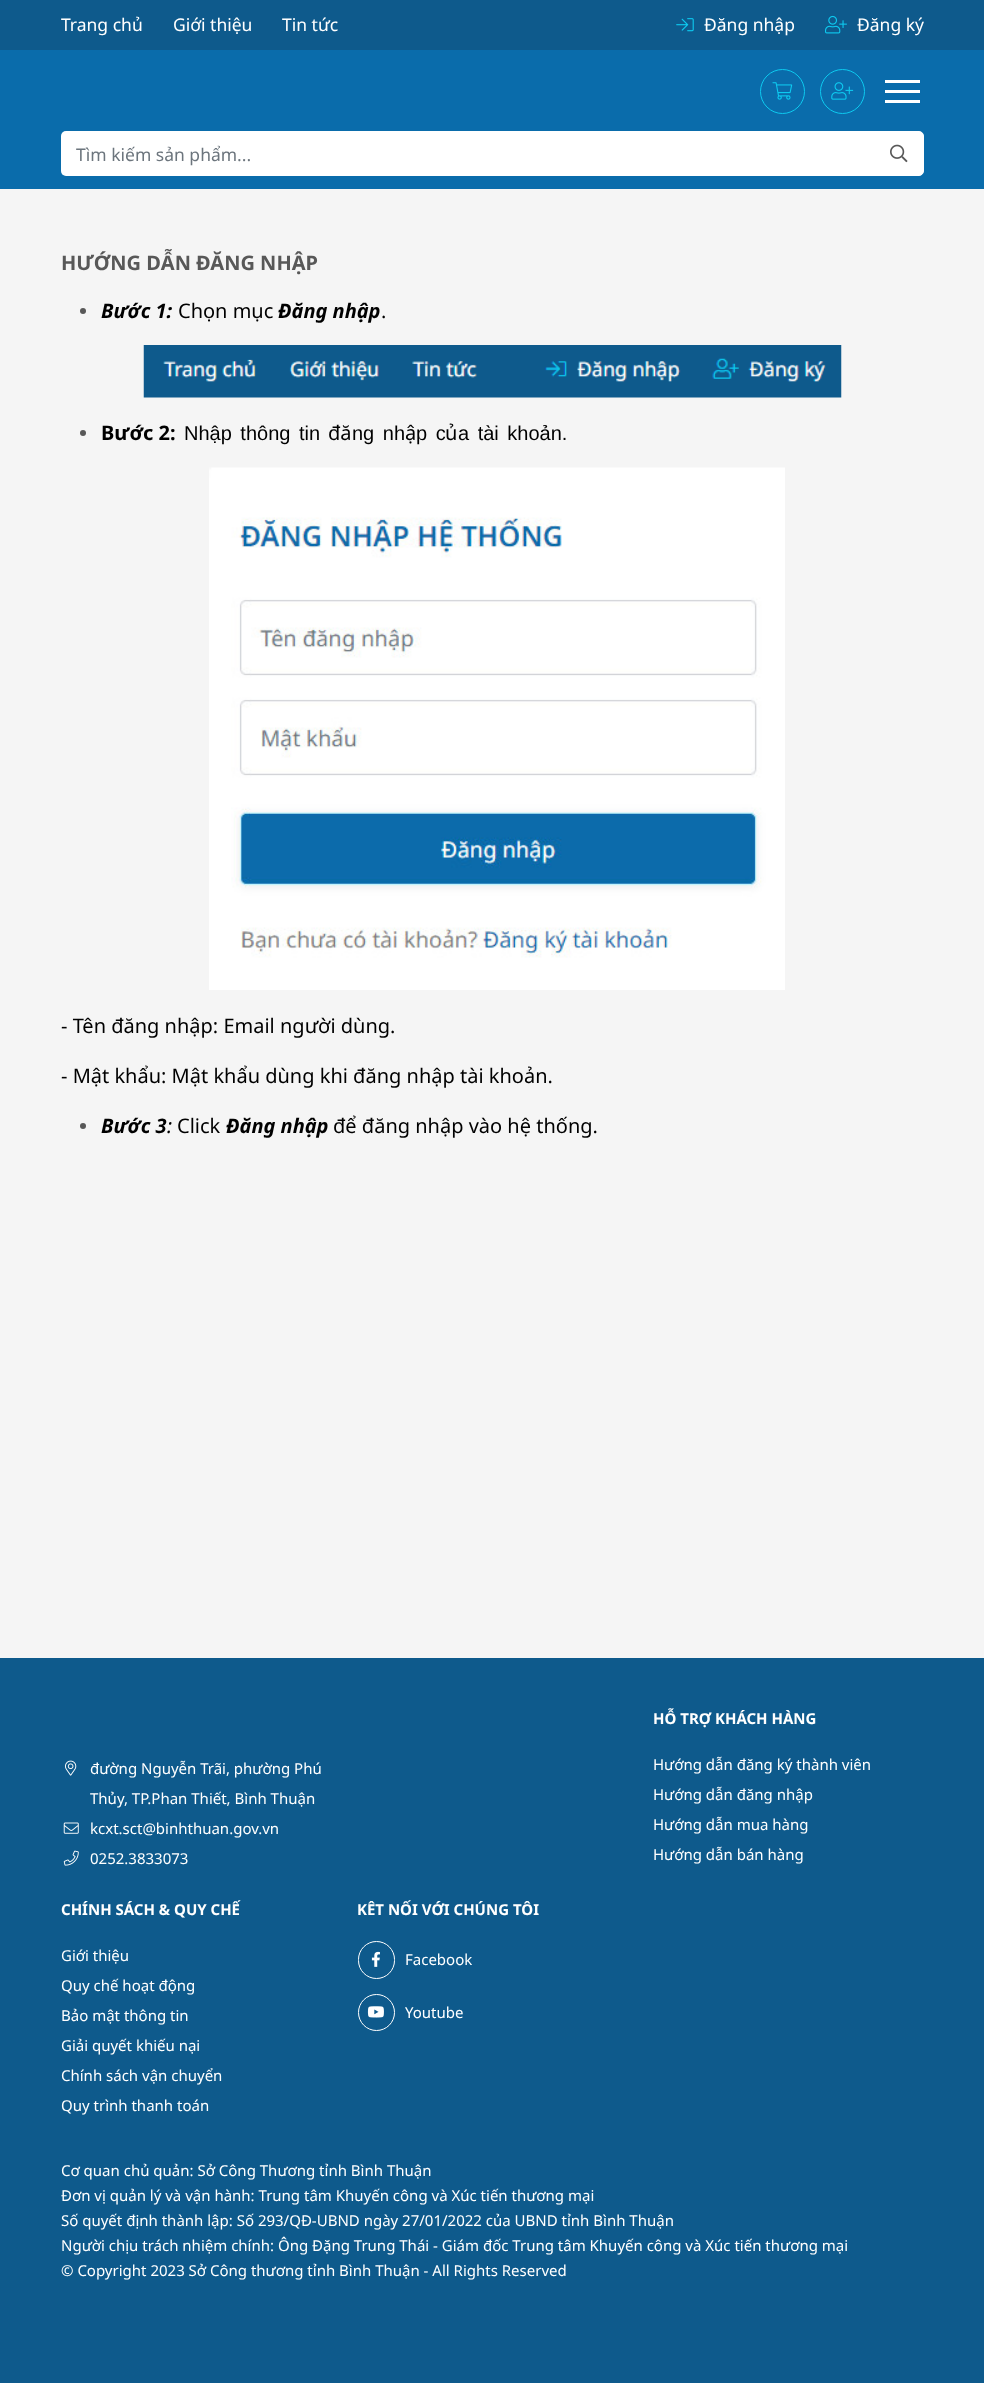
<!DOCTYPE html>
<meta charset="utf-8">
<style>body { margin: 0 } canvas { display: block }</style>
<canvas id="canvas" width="984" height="2383"></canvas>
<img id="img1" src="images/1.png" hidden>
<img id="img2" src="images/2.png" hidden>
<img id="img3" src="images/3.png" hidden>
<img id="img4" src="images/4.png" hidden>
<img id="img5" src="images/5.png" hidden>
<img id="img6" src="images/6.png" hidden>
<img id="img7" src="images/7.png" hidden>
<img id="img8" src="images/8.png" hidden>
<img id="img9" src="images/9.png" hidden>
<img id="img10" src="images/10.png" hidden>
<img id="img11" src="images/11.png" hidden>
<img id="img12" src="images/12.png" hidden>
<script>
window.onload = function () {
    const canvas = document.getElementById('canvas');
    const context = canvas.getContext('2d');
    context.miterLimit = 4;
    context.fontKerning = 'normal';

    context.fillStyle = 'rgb(245, 245, 245)';
    context.fillRect(0, 0, 984, 2383);
    context.fillStyle = 'rgb(10, 108, 171)';
    context.fillRect(0, 50, 984, 139);
    context.fillStyle = 'rgb(14, 90, 140)';
    context.fillRect(0, 0, 984, 50);
    context.drawImage(document.getElementById('img1'), 676, 18, 18, 14);
    context.drawImage(document.getElementById('img2'), 825, 15, 22, 19);
    context.beginPath();
    context.arc(782.5, 91.5, 22, 0, 2 * Math.PI);
    context.strokeStyle = 'rgb(13, 202, 240)';
    context.stroke();
    context.drawImage(document.getElementById('img3'), 772, 82, 21, 18);
    context.beginPath();
    context.arc(842.5, 91.5, 22, 0, 2 * Math.PI);
    context.stroke();
    context.drawImage(document.getElementById('img4'), 831, 82, 23, 18);
    context.fillStyle = 'rgb(255, 255, 255)';
    context.fillRect(885, 80, 35, 3);
    context.fillRect(885, 90, 35, 3);
    context.fillRect(885, 100, 35, 3);
    context.beginPath();
    context.roundRect(874.5, 131.5, 49, 44, [0, 4.5, 4.5, 0]);
    context.fill();
    context.strokeStyle = 'rgb(255, 255, 255)';
    context.stroke();
    context.beginPath();
    context.roundRect(61, 131, 814, 45, [5, 0, 0, 5]);
    context.fill();
    context.drawImage(document.getElementById('img5'), 890, 144, 18, 19);
    context.fillStyle = 'rgb(88, 88, 88)';
    context.beginPath();
    context.arc(83, 311, 3, 0, 2 * Math.PI);
    context.fill();
    context.drawImage(document.getElementById('img6'), 143, 345, 699, 53);
    context.beginPath();
    context.arc(83, 433, 3, 0, 2 * Math.PI);
    context.fill();
    context.drawImage(document.getElementById('img7'), 209, 467, 576, 523);
    context.beginPath();
    context.arc(83, 1126, 3, 0, 2 * Math.PI);
    context.fill();
    context.fillStyle = 'rgb(14, 90, 140)';
    context.fillRect(0, 1658, 984, 725);
    context.drawImage(document.getElementById('img8'), 65, 1760, 12, 16);
    context.drawImage(document.getElementById('img9'), 63, 1822, 16, 12);
    context.drawImage(document.getElementById('img10'), 63, 1850, 16, 16);
    context.beginPath();
    context.roundRect(358.5, 1941.5, 36, 37, 18);
    context.stroke();
    context.drawImage(document.getElementById('img11'), 371, 1951, 9, 16);
    context.beginPath();
    context.arc(376.5, 2012.5, 18, 0, 2 * Math.PI);
    context.stroke();
    context.drawImage(document.getElementById('img12'), 367, 2006, 17, 12);
    context.font = '17.5px Noto Sans';
    context.fillStyle = 'rgb(255, 255, 255)';
    context.fillText('Trang chủ', 61, 31);
    context.fillText('Giới thiệu', 173, 31);
    context.fillText('Tin tức', 282, 31);
    context.fillText('Đăng nhập', 704, 31);
    context.fillText('Đăng ký', 857, 31);
    context.fillStyle = 'rgb(108, 117, 125)';
    context.fillText('Tìm kiếm sản phẩm...', 76, 161);
    context.font = 'bold 20px Noto Sans';
    context.fillStyle = 'rgb(88, 88, 88)';
    context.fillText('HƯỚNG DẪN ĐĂNG NHẬP', 61, 270);
    context.font = 'italic bold 20px Noto Sans';
    context.fillStyle = 'rgb(0, 0, 0)';
    context.fillText('Bước 1:', 101, 318);
    context.font = '20px Noto Sans';
    context.fillText('Chọn mục', 178, 318);
    context.font = 'italic bold 20px Noto Sans';
    context.fillText('Đăng nhập', 278, 318);
    context.font = '20px Noto Sans';
    context.fillText('.', 381, 318);
    context.font = 'bold 20px Noto Sans';
    context.fillText('Bước 2:', 101, 440);
    context.wordSpacing = '3px';
    context.font = '20px Liberation Sans';
    context.fillText('Nhập thông tin', 184, 440);
    context.wordSpacing = '0px';
    context.font = '20px Noto Sans';
    context.fillText('đă', 328, 440);
    context.wordSpacing = '3px';
    context.font = '20px Liberation Sans';
    context.fillText('ng nh', 352, 440);
    context.wordSpacing = '0px';
    context.font = '20px Noto Sans';
    context.fillText('ậ', 405, 440);
    context.wordSpacing = '3px';
    context.font = '20px Liberation Sans';
    context.fillText('p c', 416, 440);
    context.wordSpacing = '0px';
    context.font = '20px Noto Sans';
    context.fillText('ủ', 445, 440);
    context.wordSpacing = '3px';
    context.font = '20px Liberation Sans';
    context.fillText('a tài khoản.', 458, 440);
    context.wordSpacing = '0px';
    context.font = '20px Noto Sans';
    context.fillText('- Tên đăng nhập: Email người dùng.', 61, 1033);
    context.fillText('- Mật khẩu: Mật khẩu dùng khi đăng nhập tài khoản.', 61, 1083);
    context.font = 'italic bold 20px Noto Sans';
    context.fillText('Bước 3', 101, 1133);
    context.font = 'italic 20px Noto Sans';
    context.fillText(':', 167, 1133);
    context.font = '20px Noto Sans';
    context.fillText('Click', 177, 1133);
    context.font = 'italic bold 20px Noto Sans';
    context.fillText('Đăng nhập', 226, 1133);
    context.font = '20px Noto Sans';
    context.fillText('để đăng nhập vào hệ thống.', 333, 1133);
    context.font = '15px Noto Sans';
    context.fillStyle = 'rgb(255, 255, 255)';
    context.fillText('đường Nguyễn Trãi, phường Phú', 90, 1774);
    context.fillText('Thủy, TP.Phan Thiết, Bình Thuận', 90, 1804);
    context.fillText('kcxt.sct@binhthuan.gov.vn', 90, 1834);
    context.fillText('0252.3833073', 90, 1864);
    context.font = 'bold 15px Noto Sans';
    context.fillText('HỖ TRỢ KHÁCH HÀNG', 653, 1724);
    context.font = '15px Noto Sans';
    context.fillText('Hướng dẫn đăng ký thành viên', 653, 1770);
    context.fillText('Hướng dẫn đăng nhập', 653, 1800);
    context.fillText('Hướng dẫn mua hàng', 653, 1830);
    context.fillText('Hướng dẫn bán hàng', 653, 1860);
    context.font = 'bold 15px Noto Sans';
    context.fillText('CHÍNH SÁCH & QUY CHẾ', 61, 1915);
    context.font = '15px Noto Sans';
    context.fillText('Giới thiệu', 61, 1961);
    context.fillText('Quy chế hoạt động', 61, 1991);
    context.fillText('Bảo mật thông tin', 61, 2021);
    context.fillText('Giải quyết khiếu nại', 61, 2051);
    context.fillText('Chính sách vận chuyển', 61, 2081);
    context.fillText('Quy trình thanh toán', 61, 2111);
    context.font = 'bold 15px Noto Sans';
    context.fillText('KÊT NỐI VỚI CHÚNG TÔI', 357, 1915);
    context.font = '15px Noto Sans';
    context.fillText('Facebook', 405, 1965);
    context.fillText('Youtube', 405, 2018);
    context.fillText('Cơ quan chủ quản: Sở Công Thương tỉnh Bình Thuận', 61, 2176);
    context.fillText('Đơn vị quản lý và vận hành: Trung tâm Khuyến công và Xúc tiến thương mại', 61, 2201);
    context.fillText('Số quyết định thành lập: Số 293/QĐ-UBND ngày 27/01/2022 của UBND tỉnh Bình Thuận', 61, 2226);
    context.fillText('Người chịu trách nhiệm chính: Ông Đặng Trung Thái - Giám đốc Trung tâm Khuyến công và Xúc tiến thương mại', 61, 2251);
    context.fillText('© Copyright 2023 Sở Công thương tỉnh Bình Thuận - All Rights Reserved', 61, 2276);
};
</script>
